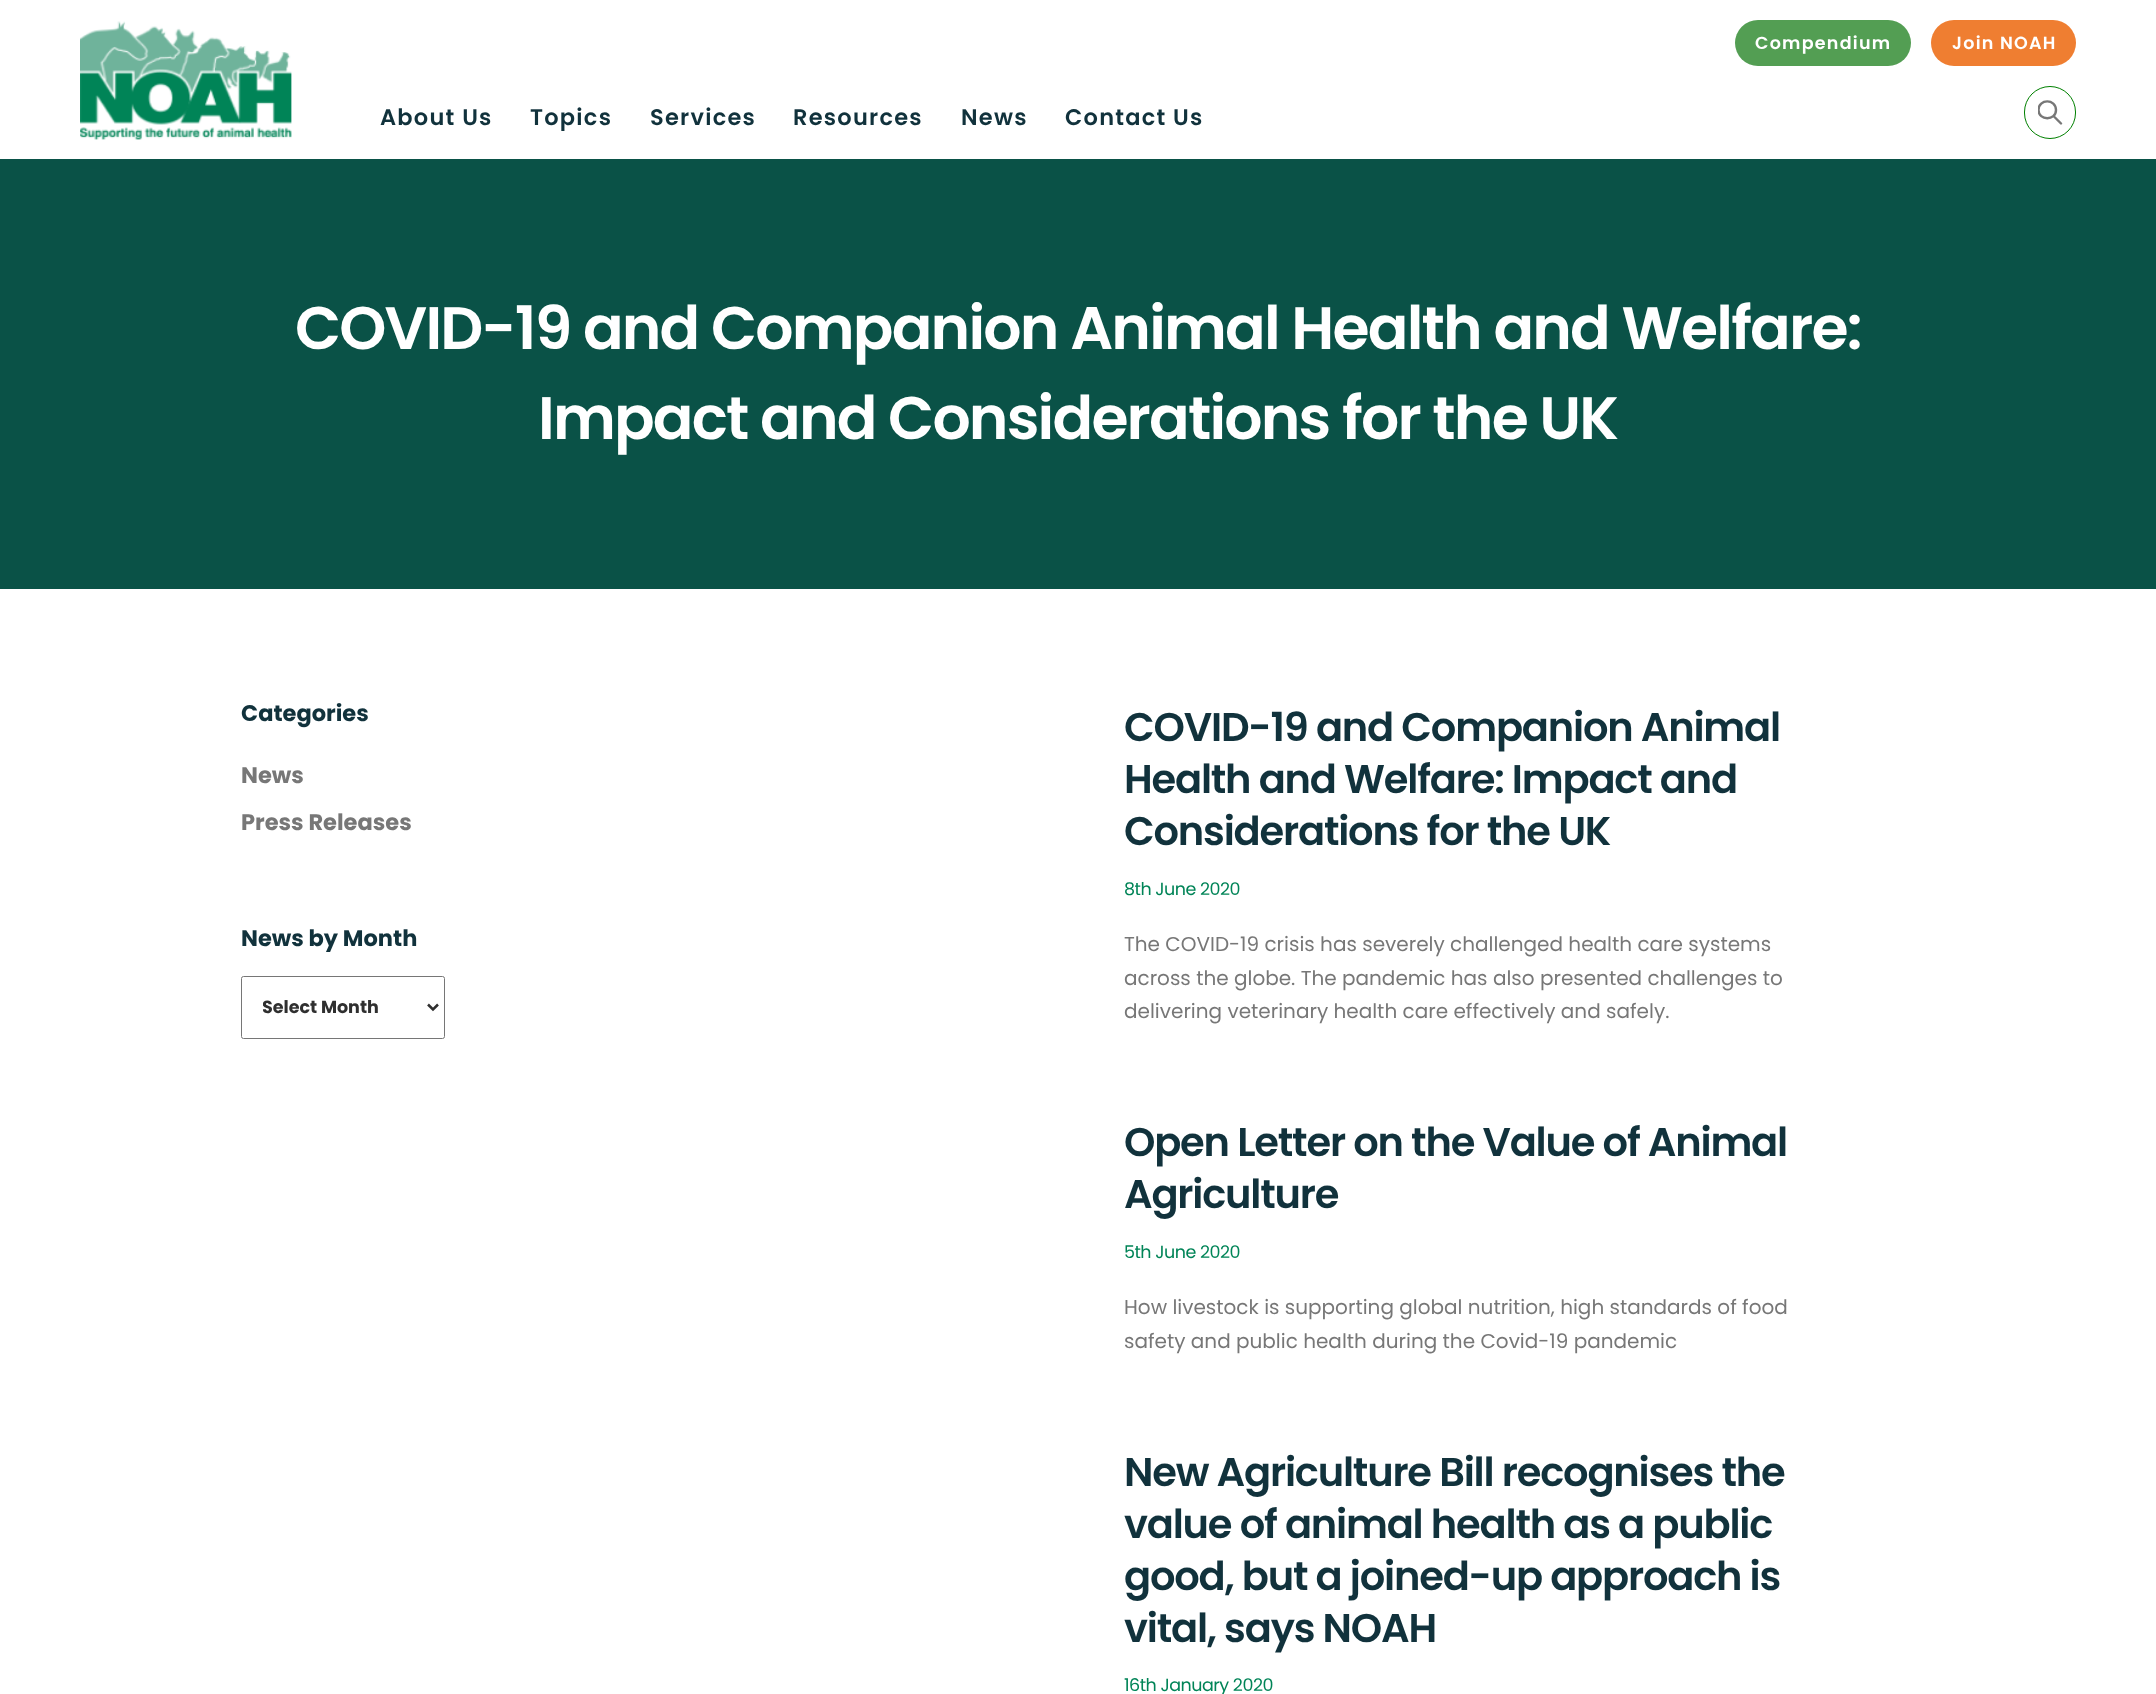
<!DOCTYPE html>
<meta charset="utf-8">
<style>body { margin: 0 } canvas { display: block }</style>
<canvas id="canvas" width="2156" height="1694"></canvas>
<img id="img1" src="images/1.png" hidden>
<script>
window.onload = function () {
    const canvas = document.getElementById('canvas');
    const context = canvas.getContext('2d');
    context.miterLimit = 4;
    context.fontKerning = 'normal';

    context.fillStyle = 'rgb(255, 255, 255)';
    context.fillRect(0, 0, 2156, 1694);
    context.drawImage(document.getElementById('img1'), 80, 21, 212, 119);
    context.fillStyle = 'rgb(83, 158, 83)';
    context.beginPath();
    context.roundRect(1735, 20, 176, 46, 23);
    context.fill();
    context.fillStyle = 'rgb(239, 126, 49)';
    context.beginPath();
    context.roundRect(1931, 20, 145, 46, 23);
    context.fill();
    context.save();
    context.beginPath();
    context.rect(2038, 100, 25, 25);
    context.clip();
    context.beginPath();
    context.moveTo(2061, 123.5);
    context.lineTo(2053.5, 116);
    context.moveTo(2056, 110);
    context.bezierCurveTo(2056, 121, 2038.5, 121, 2038.5, 110);
    context.bezierCurveTo(2038.5, 98.5, 2056, 98.5, 2056, 110);
    context.closePath();
    context.strokeStyle = 'rgb(119, 119, 119)';
    context.lineWidth = 2.4;
    context.lineCap = 'round';
    context.lineJoin = 'round';
    context.stroke();
    context.restore();
    context.beginPath();
    context.roundRect(2024.5, 86.5, 51, 52, 25.5);
    context.strokeStyle = 'rgb(0, 128, 0)';
    context.stroke();
    context.fillStyle = 'rgb(10, 82, 71)';
    context.fillRect(0, 159, 2156, 430);
    context.beginPath();
    context.roundRect(241.5, 976.5, 203, 62, 2);
    context.strokeStyle = 'rgb(118, 118, 118)';
    context.stroke();
    context.beginPath();
    context.moveTo(428, 1004.5);
    context.lineTo(433, 1009.5);
    context.lineTo(438, 1004.5);
    context.strokeStyle = 'rgb(47, 47, 47)';
    context.lineWidth = 2.5;
    context.stroke();
    context.letterSpacing = '1.25px';
    context.font = '600 17.5px Poppins';
    context.fillStyle = 'rgb(255, 255, 255)';
    context.fillText('Compendium', 1755, 49);
    context.fillText('Join NOAH', 1952, 49);
    context.font = '600 22.5px Poppins';
    context.fillStyle = 'rgb(17, 50, 60)';
    context.fillText('About Us', 380, 125);
    context.fillText('Topics', 530, 125);
    context.fillText('Services', 650, 125);
    context.fillText('Resources', 793, 125);
    context.fillText('News', 961, 125);
    context.fillText('Contact Us', 1065, 125);
    context.letterSpacing = '-1.8px';
    context.font = '600 60px Poppins';
    context.fillStyle = 'rgb(255, 255, 255)';
    context.fillText('COVID-19 and Companion Animal Health and Welfare:', 295, 349);
    context.fillText('Impact and Considerations for the UK', 538, 439);
    context.letterSpacing = '0px';
    context.font = 'bold 22.5px Poppins';
    context.fillStyle = 'rgb(17, 50, 60)';
    context.fillText('Categories', 241, 721);
    context.fillStyle = 'rgb(119, 119, 119)';
    context.fillText('News', 241, 783);
    context.fillText('Press Releases', 241, 830);
    context.fillStyle = 'rgb(17, 50, 60)';
    context.fillText('News by Month', 241, 946);
    context.save();
    context.beginPath();
    context.rect(263, 994, 146, 27);
    context.clip();
    context.font = 'bold 17.5px Poppins';
    context.fillStyle = 'rgb(47, 47, 47)';
    context.fillText('Select Month', 262, 1013);
    context.restore();
    context.letterSpacing = '-1.2px';
    context.font = '600 40px Poppins';
    context.fillText('COVID-19 and Companion Animal', 1124, 741);
    context.fillText('Health and Welfare: Impact and', 1124, 793);
    context.fillText('Considerations for the UK', 1124, 845);
    context.letterSpacing = '-0.5px';
    context.font = '17.5px Poppins';
    context.fillStyle = 'rgb(0, 132, 87)';
    context.fillText('8th June 2020', 1124, 895);
    context.letterSpacing = '0px';
    context.font = '20px Poppins';
    context.fillStyle = 'rgb(119, 119, 119)';
    context.fillText('The COVID-19 crisis has severely challenged health care systems', 1124, 951);
    context.fillText('across the globe. The pandemic has also presented challenges to', 1124, 985);
    context.fillText('delivering veterinary health care effectively and safely.', 1124, 1018);
    context.letterSpacing = '-1.2px';
    context.font = '600 40px Poppins';
    context.fillStyle = 'rgb(17, 50, 60)';
    context.fillText('Open Letter on the Value of Animal', 1124, 1156);
    context.fillText('Agriculture', 1124, 1208);
    context.letterSpacing = '-0.5px';
    context.font = '17.5px Poppins';
    context.fillStyle = 'rgb(0, 132, 87)';
    context.fillText('5th June 2020', 1124, 1258);
    context.letterSpacing = '0px';
    context.font = '20px Poppins';
    context.fillStyle = 'rgb(119, 119, 119)';
    context.fillText('How livestock is supporting global nutrition, high standards of food', 1124, 1314);
    context.fillText('safety and public health during the Covid-19 pandemic', 1124, 1348);
    context.letterSpacing = '-1.2px';
    context.font = '600 40px Poppins';
    context.fillStyle = 'rgb(17, 50, 60)';
    context.fillText('New Agriculture Bill recognises the', 1124, 1486);
    context.fillText('value of animal health as a public', 1124, 1538);
    context.fillText('good, but a joined-up approach is', 1124, 1590);
    context.fillText('vital, says NOAH', 1124, 1642);
    context.letterSpacing = '-0.5px';
    context.font = '17.5px Poppins';
    context.fillStyle = 'rgb(0, 132, 87)';
    context.fillText('16th January 2020', 1124, 1691);
};
</script>
